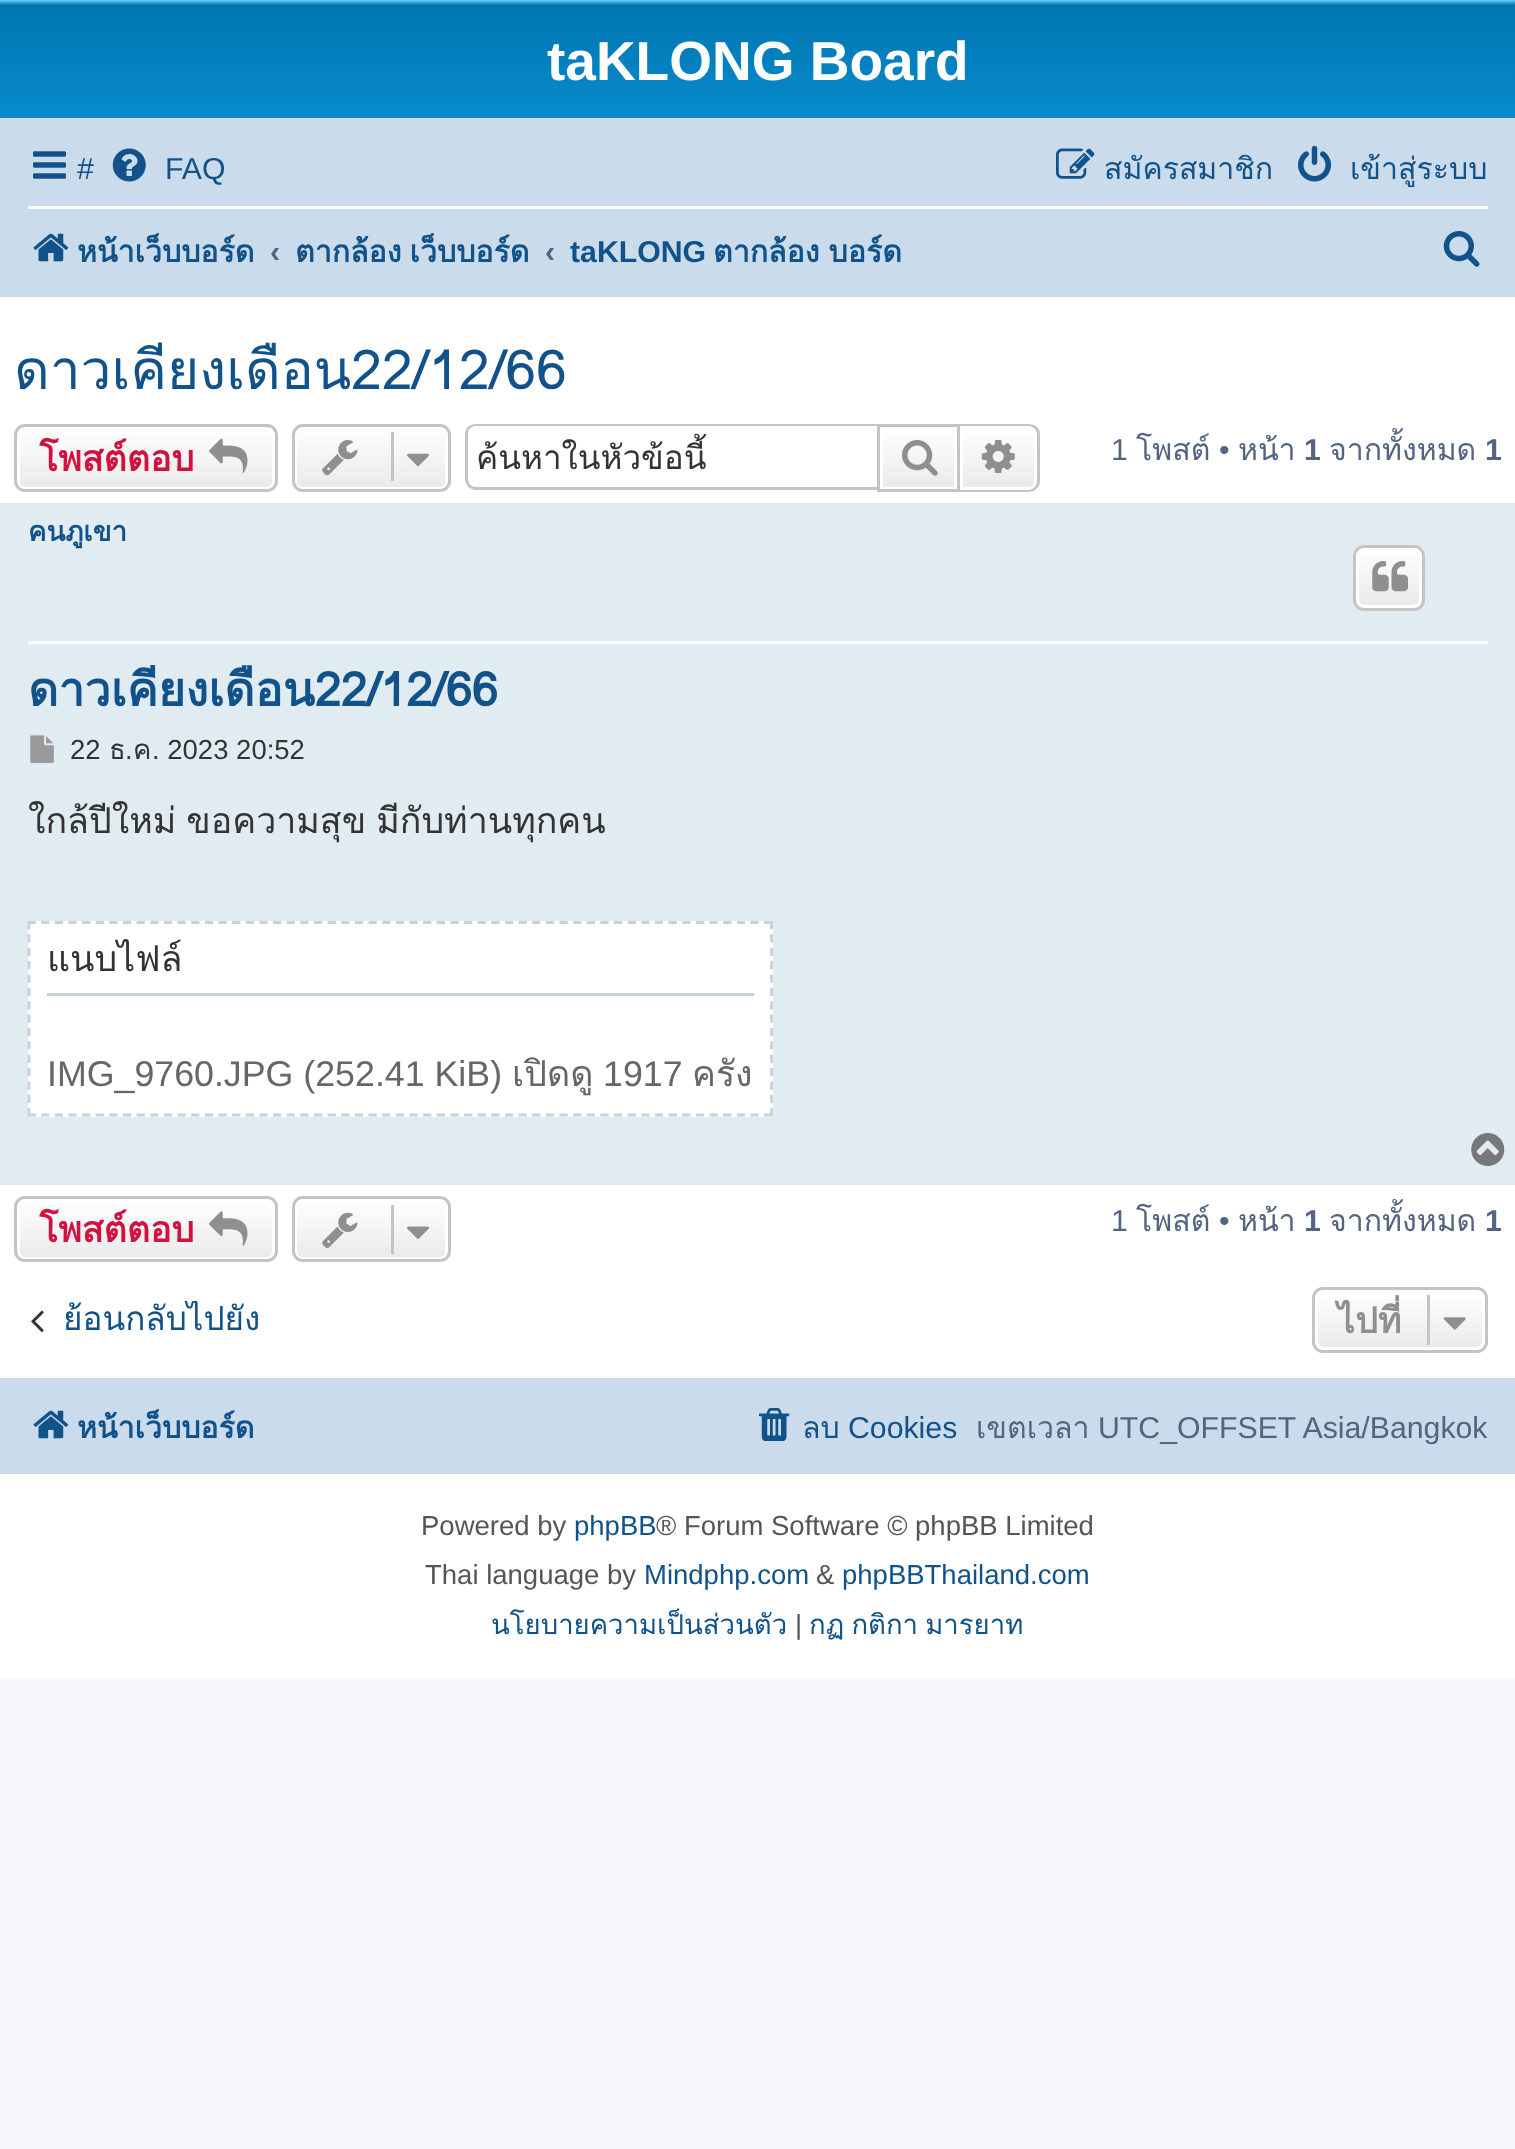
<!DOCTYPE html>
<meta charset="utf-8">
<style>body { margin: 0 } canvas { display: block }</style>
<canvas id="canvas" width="1515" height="2149"></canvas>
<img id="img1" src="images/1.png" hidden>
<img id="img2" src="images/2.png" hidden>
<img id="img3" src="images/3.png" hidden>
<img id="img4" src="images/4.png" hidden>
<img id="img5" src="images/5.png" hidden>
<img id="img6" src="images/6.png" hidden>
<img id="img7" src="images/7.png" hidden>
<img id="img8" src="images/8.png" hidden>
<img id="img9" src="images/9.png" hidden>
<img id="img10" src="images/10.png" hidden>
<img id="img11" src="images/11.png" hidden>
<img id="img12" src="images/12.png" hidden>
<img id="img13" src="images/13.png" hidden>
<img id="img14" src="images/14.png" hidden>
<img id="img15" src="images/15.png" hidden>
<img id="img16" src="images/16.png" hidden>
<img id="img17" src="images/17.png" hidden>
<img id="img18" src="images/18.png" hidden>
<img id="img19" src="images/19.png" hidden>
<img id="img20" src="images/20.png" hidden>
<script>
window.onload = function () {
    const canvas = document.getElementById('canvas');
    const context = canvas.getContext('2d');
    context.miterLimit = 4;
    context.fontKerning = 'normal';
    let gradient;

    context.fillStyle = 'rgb(245, 247, 250)';
    context.fillRect(0, 0, 1515, 2149);
    context.fillStyle = 'rgb(255, 255, 255)';
    context.fillRect(0, 297, 1515, 1381);
    gradient = context.createLinearGradient(758, 0, 758, 253);
    gradient.addColorStop(0, 'rgb(106, 206, 255)');
    gradient.addColorStop(0.02, 'rgb(0, 118, 177)');
    gradient.addColorStop(1, 'rgb(18, 163, 235)');
    context.fillStyle = gradient;
    context.fillRect(0, 0, 1515, 118);
    context.fillStyle = 'rgb(202, 220, 235)';
    context.fillRect(0, 118, 1515, 179);
    context.drawImage(document.getElementById('img1'), 33, 151, 33, 28);
    context.drawImage(document.getElementById('img2'), 112, 148, 34, 34);
    context.drawImage(document.getElementById('img3'), 1056, 148, 39, 31);
    context.drawImage(document.getElementById('img4'), 1298, 145, 33, 37);
    context.fillStyle = 'rgb(255, 255, 255)';
    context.fillRect(28, 206, 1460, 3);
    context.drawImage(document.getElementById('img5'), 33, 233, 36, 29);
    context.drawImage(document.getElementById('img6'), 1443, 231, 37, 36);
    context.save();
    context.beginPath();
    context.roundRect(14, 424, 264, 68, 11);
    context.clip();
    gradient = context.createLinearGradient(146, 426, 146, 490);
    gradient.addColorStop(0, 'rgb(255, 255, 255)');
    gradient.addColorStop(1, 'rgb(233, 233, 233)');
    context.fillStyle = gradient;
    context.fillRect(14, 426, 264, 64);
    context.restore();
    context.beginPath();
    context.roundRect(18.5, 427.5, 255, 61, 6.5);
    context.strokeStyle = 'rgb(255, 255, 255)';
    context.lineWidth = 3;
    context.stroke();
    context.beginPath();
    context.roundRect(15.5, 425.5, 261, 65, 9.5);
    context.strokeStyle = 'rgb(199, 195, 191)';
    context.stroke();
    context.drawImage(document.getElementById('img7'), 209, 438, 39, 35);
    context.save();
    context.beginPath();
    context.roundRect(292, 424, 159, 68, 11);
    context.clip();
    gradient = context.createLinearGradient(371, 426, 371, 490);
    gradient.addColorStop(0, 'rgb(255, 255, 255)');
    gradient.addColorStop(1, 'rgb(233, 233, 233)');
    context.fillStyle = gradient;
    context.fillRect(292, 426, 159, 64);
    context.restore();
    context.beginPath();
    context.roundRect(295.5, 427.5, 151, 61, 6.5);
    context.strokeStyle = 'rgb(255, 255, 255)';
    context.stroke();
    context.beginPath();
    context.roundRect(293.5, 425.5, 156, 65, 9.5);
    context.strokeStyle = 'rgb(199, 195, 191)';
    context.stroke();
    context.drawImage(document.getElementById('img8'), 322, 440, 36, 36);
    context.fillStyle = 'rgb(199, 195, 191)';
    context.fillRect(391, 432, 3, 49);
    context.drawImage(document.getElementById('img9'), 407, 453, 22, 13);
    context.beginPath();
    context.moveTo(476, 424);
    context.lineTo(877, 424);
    context.lineTo(877, 490);
    context.lineTo(476, 490);
    context.bezierCurveTo(470, 490, 465, 485, 465, 478);
    context.lineTo(465, 434);
    context.bezierCurveTo(465, 428, 470, 424, 476, 424);
    context.closePath();
    context.moveTo(476, 426);
    context.lineTo(877, 426);
    context.lineTo(877, 487);
    context.lineTo(476, 487);
    context.bezierCurveTo(471, 487, 468, 483, 468, 478);
    context.lineTo(468, 434);
    context.bezierCurveTo(468, 430, 471, 426, 476, 426);
    context.closePath();
    context.fill('evenodd');
    gradient = context.createLinearGradient(919, 426, 919, 490);
    gradient.addColorStop(0, 'rgb(255, 255, 255)');
    gradient.addColorStop(1, 'rgb(233, 233, 233)');
    context.fillStyle = gradient;
    context.fillRect(883, 433, 71, 54);
    context.strokeRect(878.5, 425.5, 80, 65);
    context.drawImage(document.getElementById('img10'), 902, 440, 36, 36);
    gradient = context.createLinearGradient(998, 426, 998, 490);
    gradient.addColorStop(0, 'rgb(255, 255, 255)');
    gradient.addColorStop(1, 'rgb(233, 233, 233)');
    context.fillStyle = gradient;
    context.beginPath();
    context.roundRect(961.5, 427.5, 74, 61, [0, 6.5, 6.5, 0]);
    context.fill();
    context.strokeStyle = 'rgb(255, 255, 255)';
    context.stroke();
    context.fillStyle = 'rgb(199, 195, 191)';
    context.beginPath();
    context.moveTo(960, 424);
    context.lineTo(1028, 424);
    context.bezierCurveTo(1035, 424, 1040, 428, 1040, 434);
    context.lineTo(1040, 481);
    context.bezierCurveTo(1040, 487, 1035, 492, 1028, 492);
    context.lineTo(960, 492);
    context.closePath();
    context.moveTo(960, 426);
    context.lineTo(1028, 426);
    context.bezierCurveTo(1033, 426, 1037, 430, 1037, 434);
    context.lineTo(1037, 481);
    context.bezierCurveTo(1037, 486, 1033, 490, 1028, 490);
    context.lineTo(960, 490);
    context.closePath();
    context.fill('evenodd');
    context.drawImage(document.getElementById('img11'), 981, 440, 34, 33);
    context.fillStyle = 'rgb(225, 235, 242)';
    context.fillRect(0, 503, 1515, 682);
    context.fillStyle = 'rgb(255, 255, 255)';
    context.fillRect(28, 641, 1460, 3);
    context.save();
    context.beginPath();
    context.roundRect(1353, 545, 72, 66, 11);
    context.clip();
    gradient = context.createLinearGradient(1389, 547, 1389, 608);
    gradient.addColorStop(0, 'rgb(255, 255, 255)');
    gradient.addColorStop(1, 'rgb(233, 233, 233)');
    context.fillStyle = gradient;
    context.fillRect(1353, 547, 72, 61);
    context.restore();
    context.beginPath();
    context.roundRect(1357.5, 548.5, 63, 58, 6.5);
    context.stroke();
    context.beginPath();
    context.roundRect(1354.5, 546.5, 69, 63, 9.5);
    context.strokeStyle = 'rgb(199, 195, 191)';
    context.stroke();
    context.drawImage(document.getElementById('img12'), 1372, 561, 36, 31);
    context.drawImage(document.getElementById('img13'), 30, 735, 24, 28);
    context.fillRect(28, 921, 745, 196);
    context.beginPath();
    context.moveTo(27.5, 922.5);
    context.lineTo(773, 922.5);
    context.strokeStyle = 'rgb(201, 210, 216)';
    context.lineWidth = 2.8;
    context.setLineDash([8.25, 5.39]);
    context.stroke();
    context.beginPath();
    context.moveTo(771.5, 921);
    context.lineTo(771.5, 1116.5);
    context.setLineDash([8.25, 5.12]);
    context.stroke();
    context.beginPath();
    context.moveTo(27.5, 1115);
    context.lineTo(773, 1115);
    context.setLineDash([8.25, 5.39]);
    context.stroke();
    context.beginPath();
    context.moveTo(29, 921);
    context.lineTo(29, 1116.5);
    context.setLineDash([8.25, 5.12]);
    context.stroke();
    context.fillStyle = 'rgb(201, 210, 216)';
    context.fillRect(47, 993, 707, 3);
    context.drawImage(document.getElementById('img14'), 1471, 1133, 34, 33);
    context.save();
    context.beginPath();
    context.roundRect(14, 1196, 264, 66, 11);
    context.clip();
    gradient = context.createLinearGradient(146, 1199, 146, 1260);
    gradient.addColorStop(0, 'rgb(255, 255, 255)');
    gradient.addColorStop(1, 'rgb(233, 233, 233)');
    context.fillStyle = gradient;
    context.fillRect(14, 1199, 264, 61);
    context.restore();
    context.beginPath();
    context.roundRect(18.5, 1200.5, 255, 58, 6.5);
    context.strokeStyle = 'rgb(255, 255, 255)';
    context.lineWidth = 3;
    context.setLineDash([]);
    context.stroke();
    context.beginPath();
    context.roundRect(15.5, 1197.5, 261, 63, 9.5);
    context.strokeStyle = 'rgb(199, 195, 191)';
    context.stroke();
    context.drawImage(document.getElementById('img15'), 209, 1211, 39, 35);
    context.save();
    context.beginPath();
    context.roundRect(292, 1196, 159, 66, 11);
    context.clip();
    gradient = context.createLinearGradient(371, 1199, 371, 1260);
    gradient.addColorStop(0, 'rgb(255, 255, 255)');
    gradient.addColorStop(1, 'rgb(233, 233, 233)');
    context.fillStyle = gradient;
    context.fillRect(292, 1199, 159, 61);
    context.restore();
    context.beginPath();
    context.roundRect(295.5, 1200.5, 151, 58, 6.5);
    context.strokeStyle = 'rgb(255, 255, 255)';
    context.stroke();
    context.beginPath();
    context.roundRect(293.5, 1197.5, 156, 63, 9.5);
    context.strokeStyle = 'rgb(199, 195, 191)';
    context.stroke();
    context.drawImage(document.getElementById('img16'), 322, 1212, 36, 36);
    context.fillStyle = 'rgb(199, 195, 191)';
    context.fillRect(391, 1205, 3, 49);
    context.drawImage(document.getElementById('img17'), 407, 1226, 22, 13);
    context.drawImage(document.getElementById('img18'), 31, 1310, 13, 22);
    context.save();
    context.beginPath();
    context.roundRect(1312, 1287, 176, 66, 11);
    context.clip();
    gradient = context.createLinearGradient(1400, 1290, 1400, 1350);
    gradient.addColorStop(0, 'rgb(255, 255, 255)');
    gradient.addColorStop(1, 'rgb(233, 233, 233)');
    context.fillStyle = gradient;
    context.fillRect(1312, 1290, 176, 60);
    context.restore();
    context.beginPath();
    context.roundRect(1316.5, 1291.5, 167, 57, 6.5);
    context.strokeStyle = 'rgb(255, 255, 255)';
    context.stroke();
    context.beginPath();
    context.roundRect(1313.5, 1288.5, 173, 63, 9.5);
    context.strokeStyle = 'rgb(199, 195, 191)';
    context.stroke();
    context.fillRect(1427, 1295, 3, 50);
    context.drawImage(document.getElementById('img19'), 1443, 1317, 23, 13);
    context.fillStyle = 'rgb(202, 220, 235)';
    context.fillRect(0, 1378, 1515, 96);
    context.drawImage(document.getElementById('img5'), 33, 1410, 36, 29);
    context.drawImage(document.getElementById('img20'), 759, 1408, 31, 33);
    context.font = 'bold 55px Liberation Sans';
    context.fillStyle = 'rgb(255, 255, 255)';
    context.fillText('taKLONG Board', 547, 80);
    context.font = '30.25px Liberation Sans';
    context.fillStyle = 'rgb(16, 82, 137)';
    context.fillText('#', 77, 179);
    context.fillText('FAQ', 165, 179);
    context.font = '30.25px Loma';
    context.fillText('สมัครสมาชิก', 1104, 179);
    context.fillText('เข้าสู่ระบบ', 1350, 179);
    context.font = 'bold 30.25px Loma';
    context.fillText('หน้าเว็บบอร์ด', 77, 262);
    context.font = 'bold 30.25px Liberation Sans';
    context.fillStyle = 'rgb(83, 100, 130)';
    context.fillText('‹', 270, 262);
    context.wordSpacing = '-2px';
    context.font = 'bold 30.25px Loma';
    context.fillStyle = 'rgb(16, 82, 137)';
    context.fillText('ตากล้อง เว็บบอร์ด', 295, 262);
    context.wordSpacing = '0px';
    context.font = 'bold 30.25px Liberation Sans';
    context.fillStyle = 'rgb(83, 100, 130)';
    context.fillText('‹', 545, 262);
    context.fillStyle = 'rgb(16, 82, 137)';
    context.fillText('taKLONG', 570, 262);
    context.wordSpacing = '-1px';
    context.font = 'bold 30.25px Loma';
    context.fillText('ตากล้อง บอร์ด', 713, 262);
    context.wordSpacing = '0px';
    context.font = '55px Loma';
    context.fillText('ดาวเคียงเดือน22/12/66', 14, 389);
    context.font = 'bold 35.75px Loma';
    context.fillStyle = 'rgb(211, 17, 65)';
    context.fillText('โพสต์ตอบ', 39, 471);
    context.save();
    context.beginPath();
    context.rect(476, 429, 382, 52);
    context.clip();
    context.font = '33.25px Loma';
    context.fillStyle = 'rgb(51, 51, 51)';
    context.fillText('ค้นหาในหัวข้อนี้', 476, 469);
    context.restore();
    context.font = '30.25px Liberation Sans';
    context.fillStyle = 'rgb(83, 100, 130)';
    context.fillText('1', 1111, 460);
    context.font = '30.25px Loma';
    context.fillText('โพสต์', 1136, 460);
    context.font = '30.25px Liberation Sans';
    context.fillText('•', 1219, 460);
    context.font = '30.25px Loma';
    context.fillText('หน้า', 1238, 460);
    context.font = 'bold 30.25px Liberation Sans';
    context.fillText('1', 1304, 460);
    context.font = '30.25px Loma';
    context.fillText('จากทั้งหมด', 1329, 460);
    context.font = 'bold 30.25px Liberation Sans';
    context.fillText('1', 1485, 460);
    context.font = 'bold 27.5px Loma';
    context.fillStyle = 'rgb(16, 82, 137)';
    context.fillText('คนภูเขา', 28, 541);
    context.font = 'bold 46.75px Loma';
    context.fillText('ดาวเคียงเดือน22/12/66', 28, 706);
    context.font = '27.5px Liberation Sans';
    context.fillStyle = 'rgb(51, 51, 51)';
    context.fillText('22', 70, 759);
    context.font = '27.5px Loma';
    context.fillText('ธ', 109, 759);
    context.font = '27.5px Liberation Sans';
    context.fillText('.', 125, 759);
    context.font = '27.5px Loma';
    context.fillText('ค', 133, 759);
    context.font = '27.5px Liberation Sans';
    context.fillText('. 2023 20:52', 152, 759);
    context.wordSpacing = '-2px';
    context.font = '35.75px Loma';
    context.fillText('ใกล้ปีใหม่ ขอความสุข มีกับท่านทุกคน', 28, 833);
    context.wordSpacing = '0px';
    context.fillText('แนบไฟล์', 47, 971);
    context.font = '35.75px Liberation Sans';
    context.fillStyle = 'rgb(102, 102, 102)';
    context.fillText('IMG_9760.JPG (252.41 KiB)', 47, 1086);
    context.font = '35.75px Loma';
    context.fillText('เปิดดู', 512, 1086);
    context.font = '35.75px Liberation Sans';
    context.fillText('1917', 603, 1086);
    context.save();
    context.beginPath();
    context.rect(47, 1056, 707, 41);
    context.clip();
    context.font = '35.75px Loma';
    context.fillText('ครั้ง', 692, 1086);
    context.restore();
    context.font = 'bold 35.75px Loma';
    context.fillStyle = 'rgb(211, 17, 65)';
    context.fillText('โพสต์ตอบ', 39, 1242);
    context.font = '30.25px Liberation Sans';
    context.fillStyle = 'rgb(83, 100, 130)';
    context.fillText('1', 1111, 1231);
    context.font = '30.25px Loma';
    context.fillText('โพสต์', 1136, 1231);
    context.font = '30.25px Liberation Sans';
    context.fillText('•', 1219, 1231);
    context.font = '30.25px Loma';
    context.fillText('หน้า', 1238, 1231);
    context.font = 'bold 30.25px Liberation Sans';
    context.fillText('1', 1304, 1231);
    context.font = '30.25px Loma';
    context.fillText('จากทั้งหมด', 1329, 1231);
    context.font = 'bold 30.25px Liberation Sans';
    context.fillText('1', 1485, 1231);
    context.save();
    context.beginPath();
    context.rect(14, 1301, 247, 41);
    context.clip();
    context.font = '33.25px Loma';
    context.fillStyle = 'rgb(16, 82, 137)';
    context.fillText('ย้อนกลับไปยัง', 63, 1330);
    context.restore();
    context.font = 'bold 35.75px Loma';
    context.fillStyle = 'rgb(143, 143, 143)';
    context.fillText('ไปที่', 1337, 1333);
    context.font = 'bold 30.25px Loma';
    context.fillStyle = 'rgb(16, 82, 137)';
    context.fillText('หน้าเว็บบอร์ด', 77, 1438);
    context.font = '30.25px Loma';
    context.fillText('ลบ', 802, 1438);
    context.font = '30.25px Liberation Sans';
    context.fillText('Cookies', 848, 1438);
    context.font = '30.25px Loma';
    context.fillStyle = 'rgb(83, 100, 130)';
    context.fillText('เขตเวลา', 976, 1438);
    context.font = '30.25px Liberation Sans';
    context.fillText('UTC_OFFSET Asia/Bangkok', 1098, 1438);
    context.font = '27.5px Liberation Sans';
    context.fillStyle = 'rgb(85, 85, 85)';
    context.fillText('Powered by', 421, 1535);
    context.fillStyle = 'rgb(16, 82, 137)';
    context.fillText('phpBB', 574, 1535);
    context.fillStyle = 'rgb(85, 85, 85)';
    context.fillText('® Forum Software © phpBB Limited', 656, 1535);
    context.fillText('Thai language by', 425, 1584);
    context.fillStyle = 'rgb(16, 82, 137)';
    context.fillText('Mindphp.com', 644, 1584);
    context.fillStyle = 'rgb(85, 85, 85)';
    context.fillText('&', 816, 1584);
    context.fillStyle = 'rgb(16, 82, 137)';
    context.fillText('phpBBThailand.com', 842, 1584);
    context.font = '27.5px Loma';
    context.fillText('นโยบายความเป็นส่วนตัว', 491, 1634);
    context.font = '27.5px Liberation Sans';
    context.fillStyle = 'rgb(85, 85, 85)';
    context.fillText('|', 795, 1634);
    context.wordSpacing = '-2px';
    context.font = '27.5px Loma';
    context.fillStyle = 'rgb(16, 82, 137)';
    context.fillText('กฏ กติกา มารยาท', 809, 1634);
};
</script>
